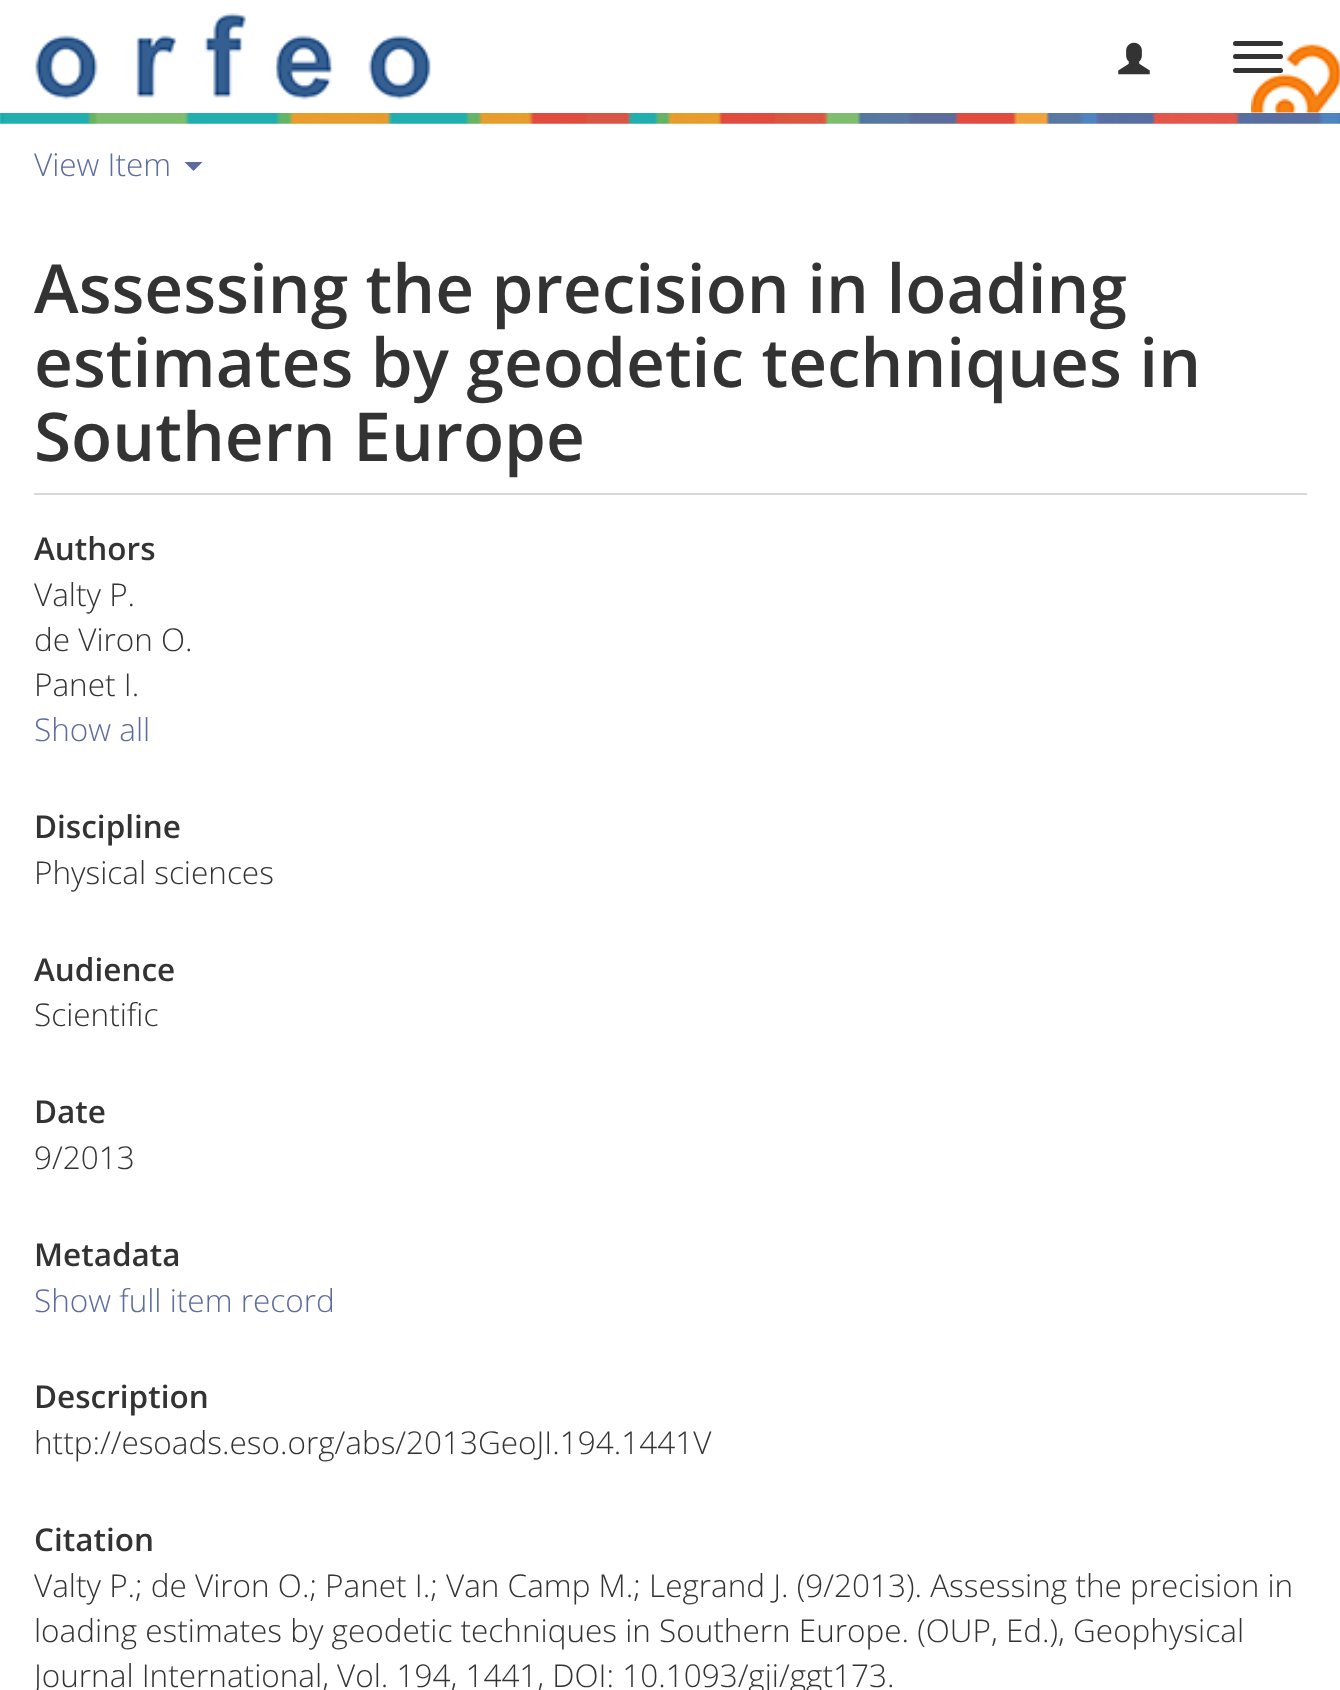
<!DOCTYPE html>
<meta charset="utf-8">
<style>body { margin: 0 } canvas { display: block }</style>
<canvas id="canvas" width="1340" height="1690"></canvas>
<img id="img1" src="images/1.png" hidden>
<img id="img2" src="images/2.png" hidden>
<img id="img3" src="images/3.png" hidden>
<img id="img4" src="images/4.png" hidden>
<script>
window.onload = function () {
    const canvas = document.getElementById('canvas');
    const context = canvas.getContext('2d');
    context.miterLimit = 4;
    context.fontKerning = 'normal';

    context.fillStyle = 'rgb(255, 255, 255)';
    context.fillRect(0, 0, 1340, 1690);
    context.drawImage(document.getElementById('img1'), 1251, 44, 89, 69);
    context.drawImage(document.getElementById('img2'), 35, 13, 396, 87);
    context.drawImage(document.getElementById('img3'), 1118, 42, 32, 33);
    context.fillStyle = 'rgb(51, 51, 51)';
    context.beginPath();
    context.roundRect(1233, 41, 50, 5, 2.5);
    context.fill();
    context.beginPath();
    context.roundRect(1233, 54, 50, 5, 2.5);
    context.fill();
    context.beginPath();
    context.roundRect(1233, 68, 50, 5, 2.5);
    context.fill();
    context.drawImage(document.getElementById('img4'), 0, 113, 1340, 11);
    context.fillStyle = 'rgb(92, 108, 157)';
    context.beginPath();
    context.moveTo(184.5, 162);
    context.lineTo(202.5, 162);
    context.lineTo(193.5, 171);
    context.closePath();
    context.fill();
    context.fillStyle = 'rgb(217, 217, 217)';
    context.fillRect(34, 493, 1273, 2);
    context.font = '300 31.5px Open Sans';
    context.fillStyle = 'rgb(92, 108, 157)';
    context.fillText('View Item', 34, 176);
    context.font = '600 67.5px Open Sans';
    context.fillStyle = 'rgb(51, 51, 51)';
    context.fillText('Assessing the precision in loading', 34, 313);
    context.fillText('estimates by geodetic techniques in', 34, 387);
    context.fillText('Southern Europe', 34, 461);
    context.font = '600 31.5px Open Sans';
    context.fillText('Authors', 34, 560);
    context.font = '300 31.5px Open Sans';
    context.fillText('Valty P.', 34, 606);
    context.fillText('de Viron O.', 34, 651);
    context.fillText('Panet I.', 34, 696);
    context.fillStyle = 'rgb(92, 108, 157)';
    context.fillText('Show all', 34, 741);
    context.font = '600 31.5px Open Sans';
    context.fillStyle = 'rgb(51, 51, 51)';
    context.fillText('Discipline', 34, 838);
    context.font = '300 31.5px Open Sans';
    context.fillText('Physical sciences', 34, 884);
    context.font = '600 31.5px Open Sans';
    context.fillText('Audience', 34, 981);
    context.font = '300 31.5px Open Sans';
    context.fillText('Scientific', 34, 1026);
    context.font = '600 31.5px Open Sans';
    context.fillText('Date', 34, 1123);
    context.font = '300 31.5px Open Sans';
    context.fillText('9/2013', 34, 1169);
    context.font = '600 31.5px Open Sans';
    context.fillText('Metadata', 34, 1266);
    context.font = '300 31.5px Open Sans';
    context.fillStyle = 'rgb(92, 108, 157)';
    context.fillText('Show full item record', 34, 1312);
    context.font = '600 31.5px Open Sans';
    context.fillStyle = 'rgb(51, 51, 51)';
    context.fillText('Description', 34, 1408);
    context.font = '300 31.5px Open Sans';
    context.fillText('http://esoads.eso.org/abs/2013GeoJI.194.1441V', 34, 1454);
    context.font = '600 31.5px Open Sans';
    context.fillText('Citation', 34, 1551);
    context.font = '300 31.5px Open Sans';
    context.fillText('Valty P.; de Viron O.; Panet I.; Van Camp M.; Legrand J. (9/2013). Assessing the precision in', 34, 1597);
    context.fillText('loading estimates by geodetic techniques in Southern Europe. (OUP, Ed.), Geophysical', 34, 1642);
    context.fillText('Journal International, Vol. 194, 1441, DOI: 10.1093/gji/ggt173.', 34, 1687);
};
</script>
